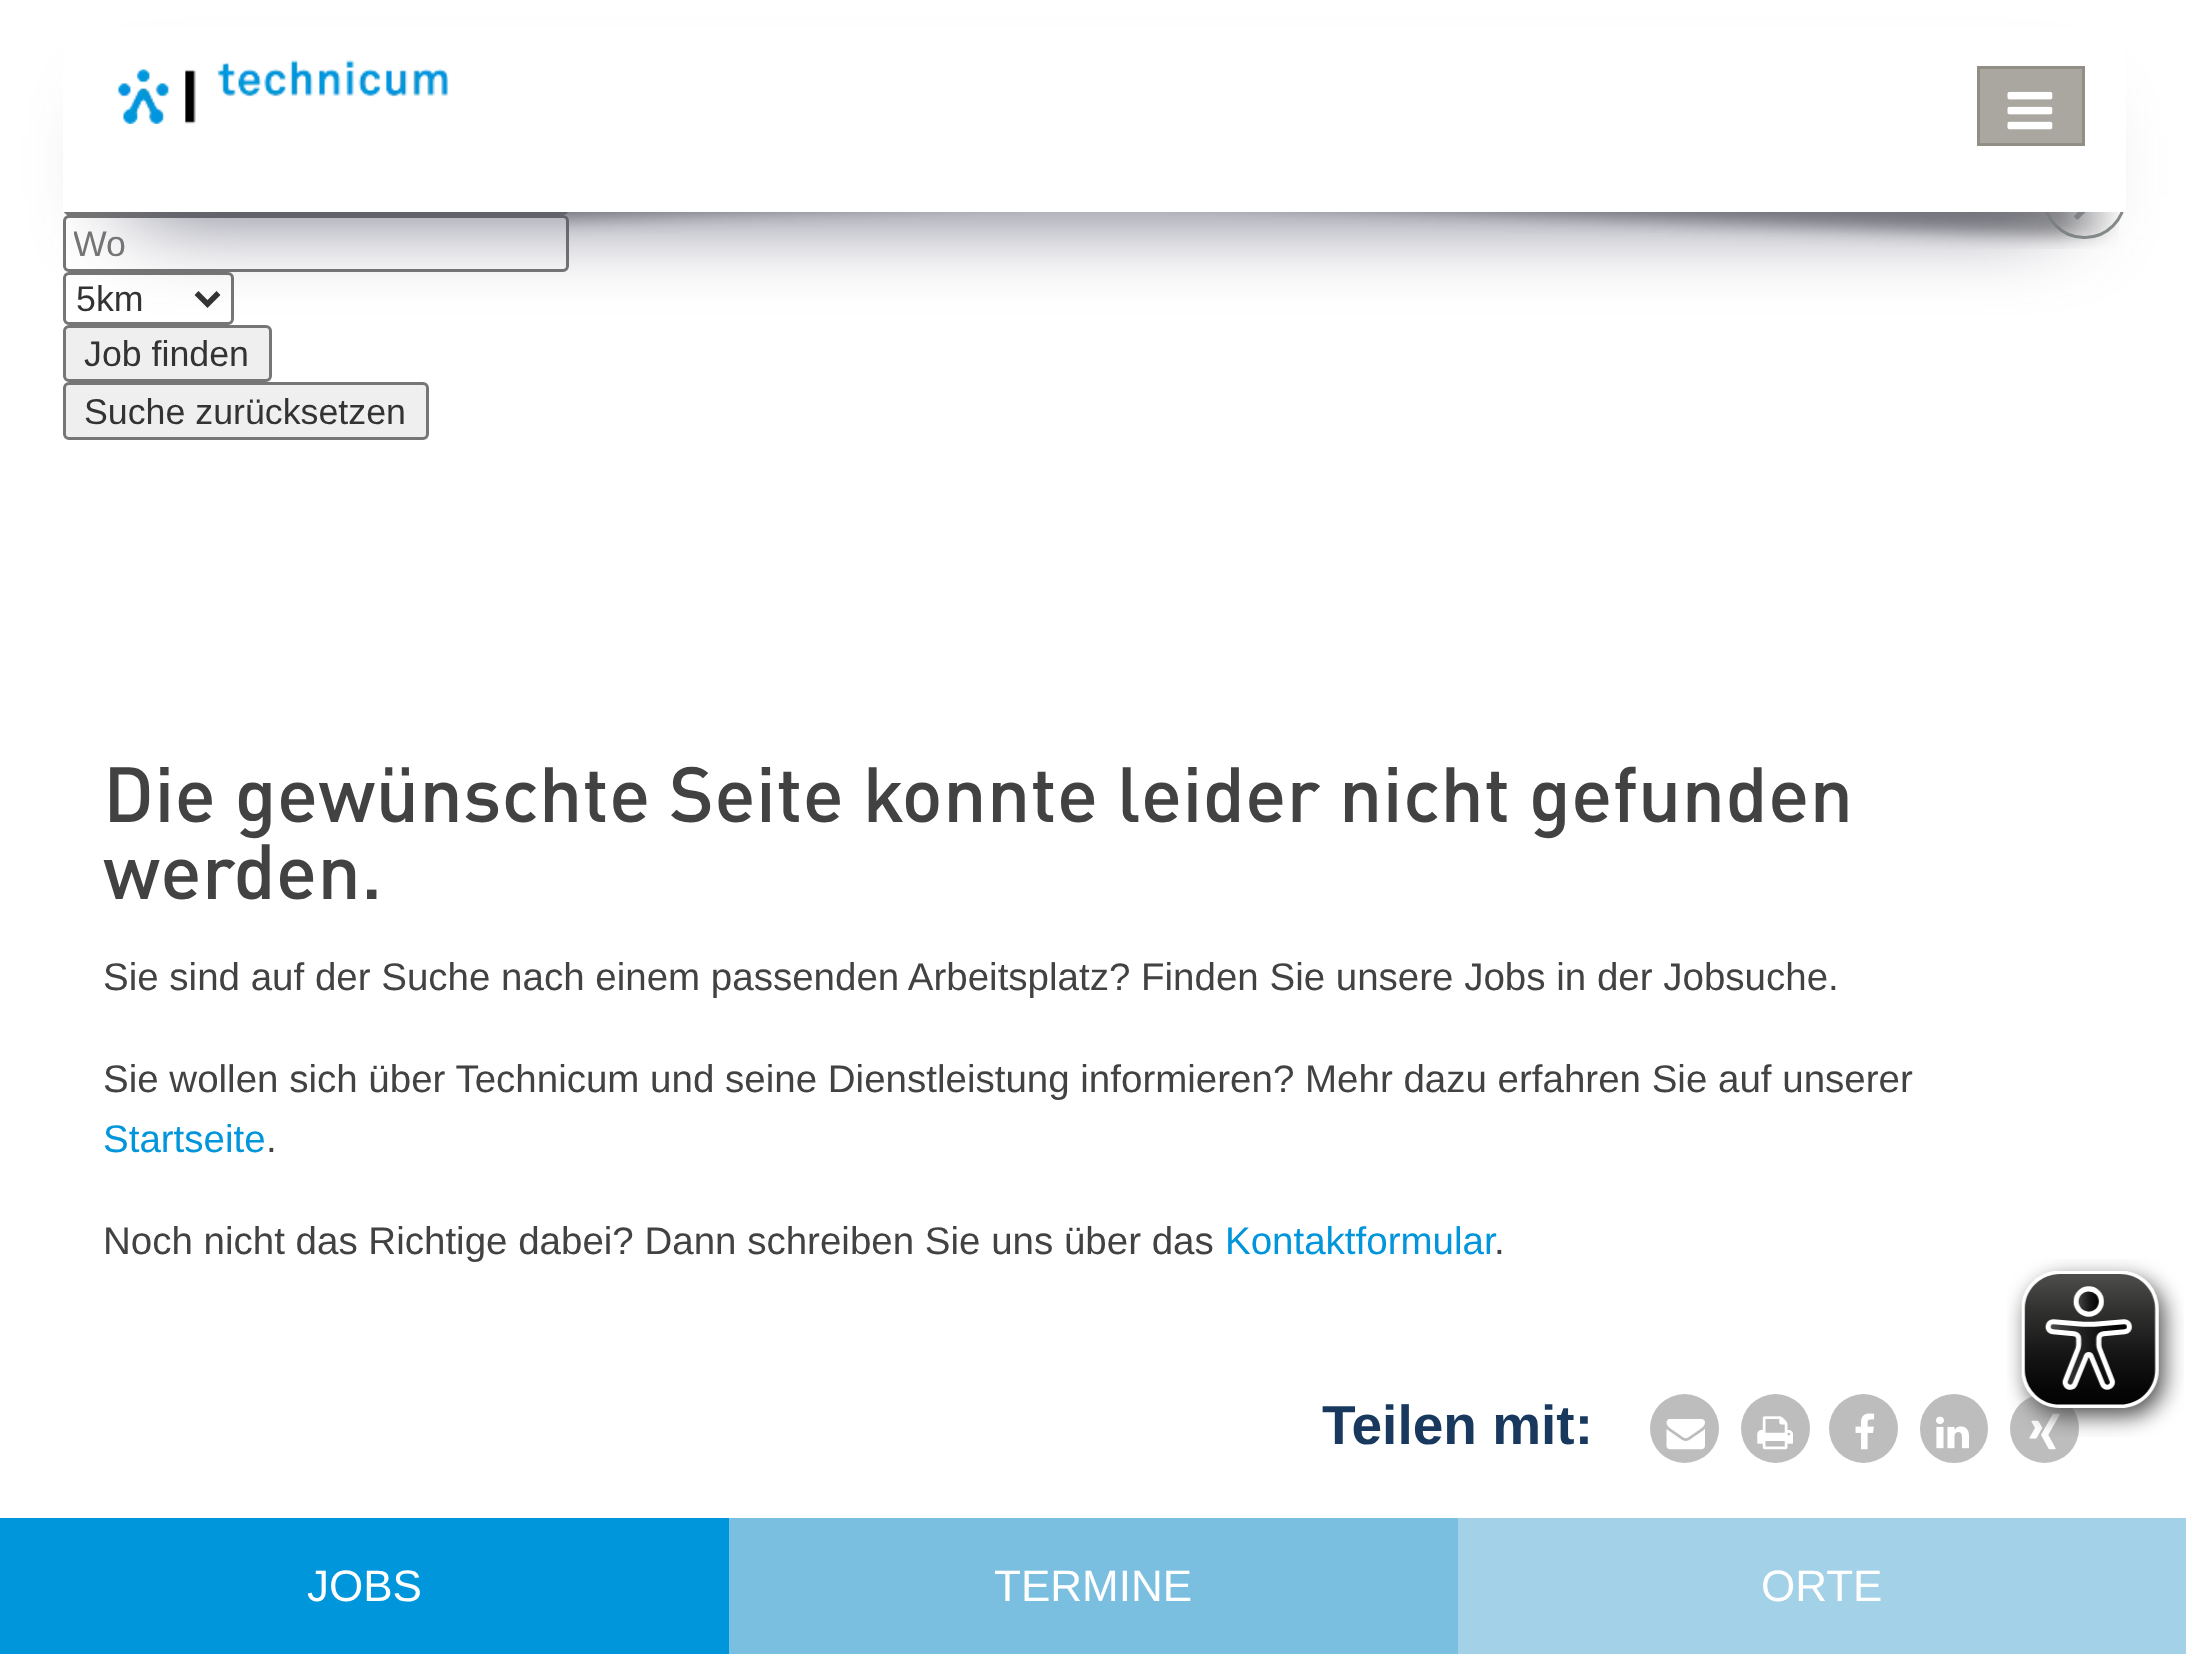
<!DOCTYPE html>
<meta charset="utf-8">
<style>body { margin: 0 } canvas { display: block }</style>
<canvas id="canvas" width="2186" height="1654"></canvas>
<img id="img1" src="images/4.png" hidden>
<img id="img2" src="images/3.png" hidden>
<img id="img3" src="images/1.png" hidden>
<img id="img4" src="images/2.png" hidden>
<img id="img5" src="images/5.png" hidden>
<img id="img6" src="images/6.png" hidden>
<img id="img7" src="images/7.png" hidden>
<img id="img8" src="images/8.png" hidden>
<img id="img9" src="images/9.png" hidden>
<img id="img10" src="images/10.png" hidden>
<script>
window.onload = function () {
    const canvas = document.getElementById('canvas');
    const context = canvas.getContext('2d');
    context.miterLimit = 4;
    context.fontKerning = 'normal';

    context.fillStyle = 'rgb(255, 255, 255)';
    context.fillRect(0, 0, 2186, 1654);
    context.beginPath();
    context.roundRect(64.5, 158.5, 80, 79, 39.5);
    context.strokeStyle = 'rgb(134, 140, 139)';
    context.lineWidth = 3;
    context.stroke();
    context.drawImage(document.getElementById('img1'), 563, 212, 1556, 37);
    context.beginPath();
    context.roundRect(2044.5, 158.5, 80, 79, 39.5);
    context.stroke();
    context.drawImage(document.getElementById('img2'), 2074, 212, 12, 8);
    context.beginPath();
    context.roundRect(64.5, 158.5, 503, 55, 4.5);
    context.strokeStyle = 'rgb(118, 118, 118)';
    context.stroke();
    context.beginPath();
    context.roundRect(64.5, 216.5, 503, 54, 4.5);
    context.fill();
    context.stroke();
    context.beginPath();
    context.roundRect(64.5, 273.5, 168, 50, 4.5);
    context.stroke();
    context.beginPath();
    context.moveTo(196.5, 293);
    context.lineTo(207.5, 304);
    context.lineTo(218.5, 293);
    context.strokeStyle = 'rgb(51, 51, 51)';
    context.lineWidth = 5.5;
    context.stroke();
    context.fillStyle = 'rgb(239, 239, 239)';
    context.beginPath();
    context.roundRect(64.5, 326.5, 206, 54, 4.5);
    context.fill();
    context.strokeStyle = 'rgb(118, 118, 118)';
    context.lineWidth = 3;
    context.stroke();
    context.fillStyle = 'rgb(66, 68, 90)';
    context.filter = 'blur(47px)';
    context.beginPath();
    context.rect(132, 129, 1925, 75);
    context.fill();
    context.filter = 'none';
    context.fillStyle = 'rgb(255, 255, 255)';
    context.fillRect(63, 26, 2063, 186);
    context.drawImage(document.getElementById('img3'), 118, 60, 331, 64);
    context.fillStyle = 'rgb(169, 167, 160)';
    context.beginPath();
    context.rect(1978.5, 67.5, 105, 77);
    context.fill();
    context.strokeStyle = 'rgb(145, 142, 133)';
    context.stroke();
    context.drawImage(document.getElementById('img4'), 2007, 91, 46, 39);
    context.fillStyle = 'rgb(239, 239, 239)';
    context.beginPath();
    context.roundRect(64.5, 383.5, 363, 55, 4.5);
    context.fill();
    context.strokeStyle = 'rgb(118, 118, 118)';
    context.stroke();
    context.fillStyle = 'rgb(190, 189, 189)';
    context.beginPath();
    context.arc(1684.5, 1428.5, 34.5, 0, 2 * Math.PI);
    context.fill();
    context.drawImage(document.getElementById('img5'), 1666, 1419, 39, 31);
    context.beginPath();
    context.arc(1775.5, 1428.5, 34.5, 0, 2 * Math.PI);
    context.fill();
    context.drawImage(document.getElementById('img6'), 1757, 1416, 36, 34);
    context.beginPath();
    context.arc(1863.5, 1428.5, 34.5, 0, 2 * Math.PI);
    context.fill();
    context.drawImage(document.getElementById('img7'), 1855, 1413, 20, 37);
    context.beginPath();
    context.roundRect(1920, 1394, 68, 69, 34);
    context.fill();
    context.drawImage(document.getElementById('img8'), 1936, 1416, 33, 33);
    context.beginPath();
    context.arc(2044.5, 1428.5, 34.5, 0, 2 * Math.PI);
    context.fill();
    context.drawImage(document.getElementById('img9'), 2029, 1413, 31, 37);
    context.fillStyle = 'rgb(0, 150, 220)';
    context.fillRect(0, 1518, 729, 136);
    context.fillStyle = 'rgb(122, 191, 224)';
    context.fillRect(729, 1518, 729, 136);
    context.fillStyle = 'rgb(163, 209, 232)';
    context.fillRect(1458, 1518, 728, 136);
    context.drawImage(document.getElementById('img10'), 2007, 1259, 177, 178);
    context.save();
    context.beginPath();
    context.rect(74, 223, 484, 41);
    context.clip();
    context.font = '35.75px Liberation Sans';
    context.fillStyle = 'rgb(117, 117, 117)';
    context.fillText('Wo', 73, 256);
    context.restore();
    context.font = '35.75px Liberation Sans';
    context.fillStyle = 'rgb(51, 51, 51)';
    context.fillText('5km', 76, 311);
    context.fillText('Job finden', 84, 366);
    context.fillText('Suche zurücksetzen', 84, 424);
    context.font = '77px DIN';
    context.fillStyle = 'rgb(66, 66, 66)';
    context.fillText('Die gewünschte Seite konnte leider nicht gefunden', 103, 822);
    context.fillText('werden.', 103, 899);
    context.font = '38.5px Liberation Sans';
    context.fillText('Sie sind auf der Suche nach einem passenden Arbeitsplatz? Finden Sie unsere Jobs in der Jobsuche.', 103, 990);
    context.fillText('Sie wollen sich über Technicum und seine Dienstleistung informieren? Mehr dazu erfahren Sie auf unserer', 103, 1092);
    context.fillStyle = 'rgb(1, 149, 219)';
    context.fillText('Startseite', 103, 1152);
    context.fillStyle = 'rgb(66, 66, 66)';
    context.fillText('.', 266, 1152);
    context.fillText('Noch nicht das Richtige dabei? Dann schreiben Sie uns über das', 103, 1254);
    context.fillStyle = 'rgb(1, 149, 219)';
    context.fillText('Kontaktformular', 1225, 1254);
    context.fillStyle = 'rgb(66, 66, 66)';
    context.fillText('.', 1494, 1254);
    context.font = 'bold 55px Liberation Sans';
    context.fillStyle = 'rgb(24, 57, 93)';
    context.fillText('Teilen mit:', 1322, 1444);
    context.font = '44px Liberation Sans';
    context.fillStyle = 'rgb(255, 255, 255)';
    context.fillText('JOBS', 307, 1601);
    context.fillText('TERMINE', 994, 1601);
    context.fillText('ORTE', 1761, 1601);
};
</script>
